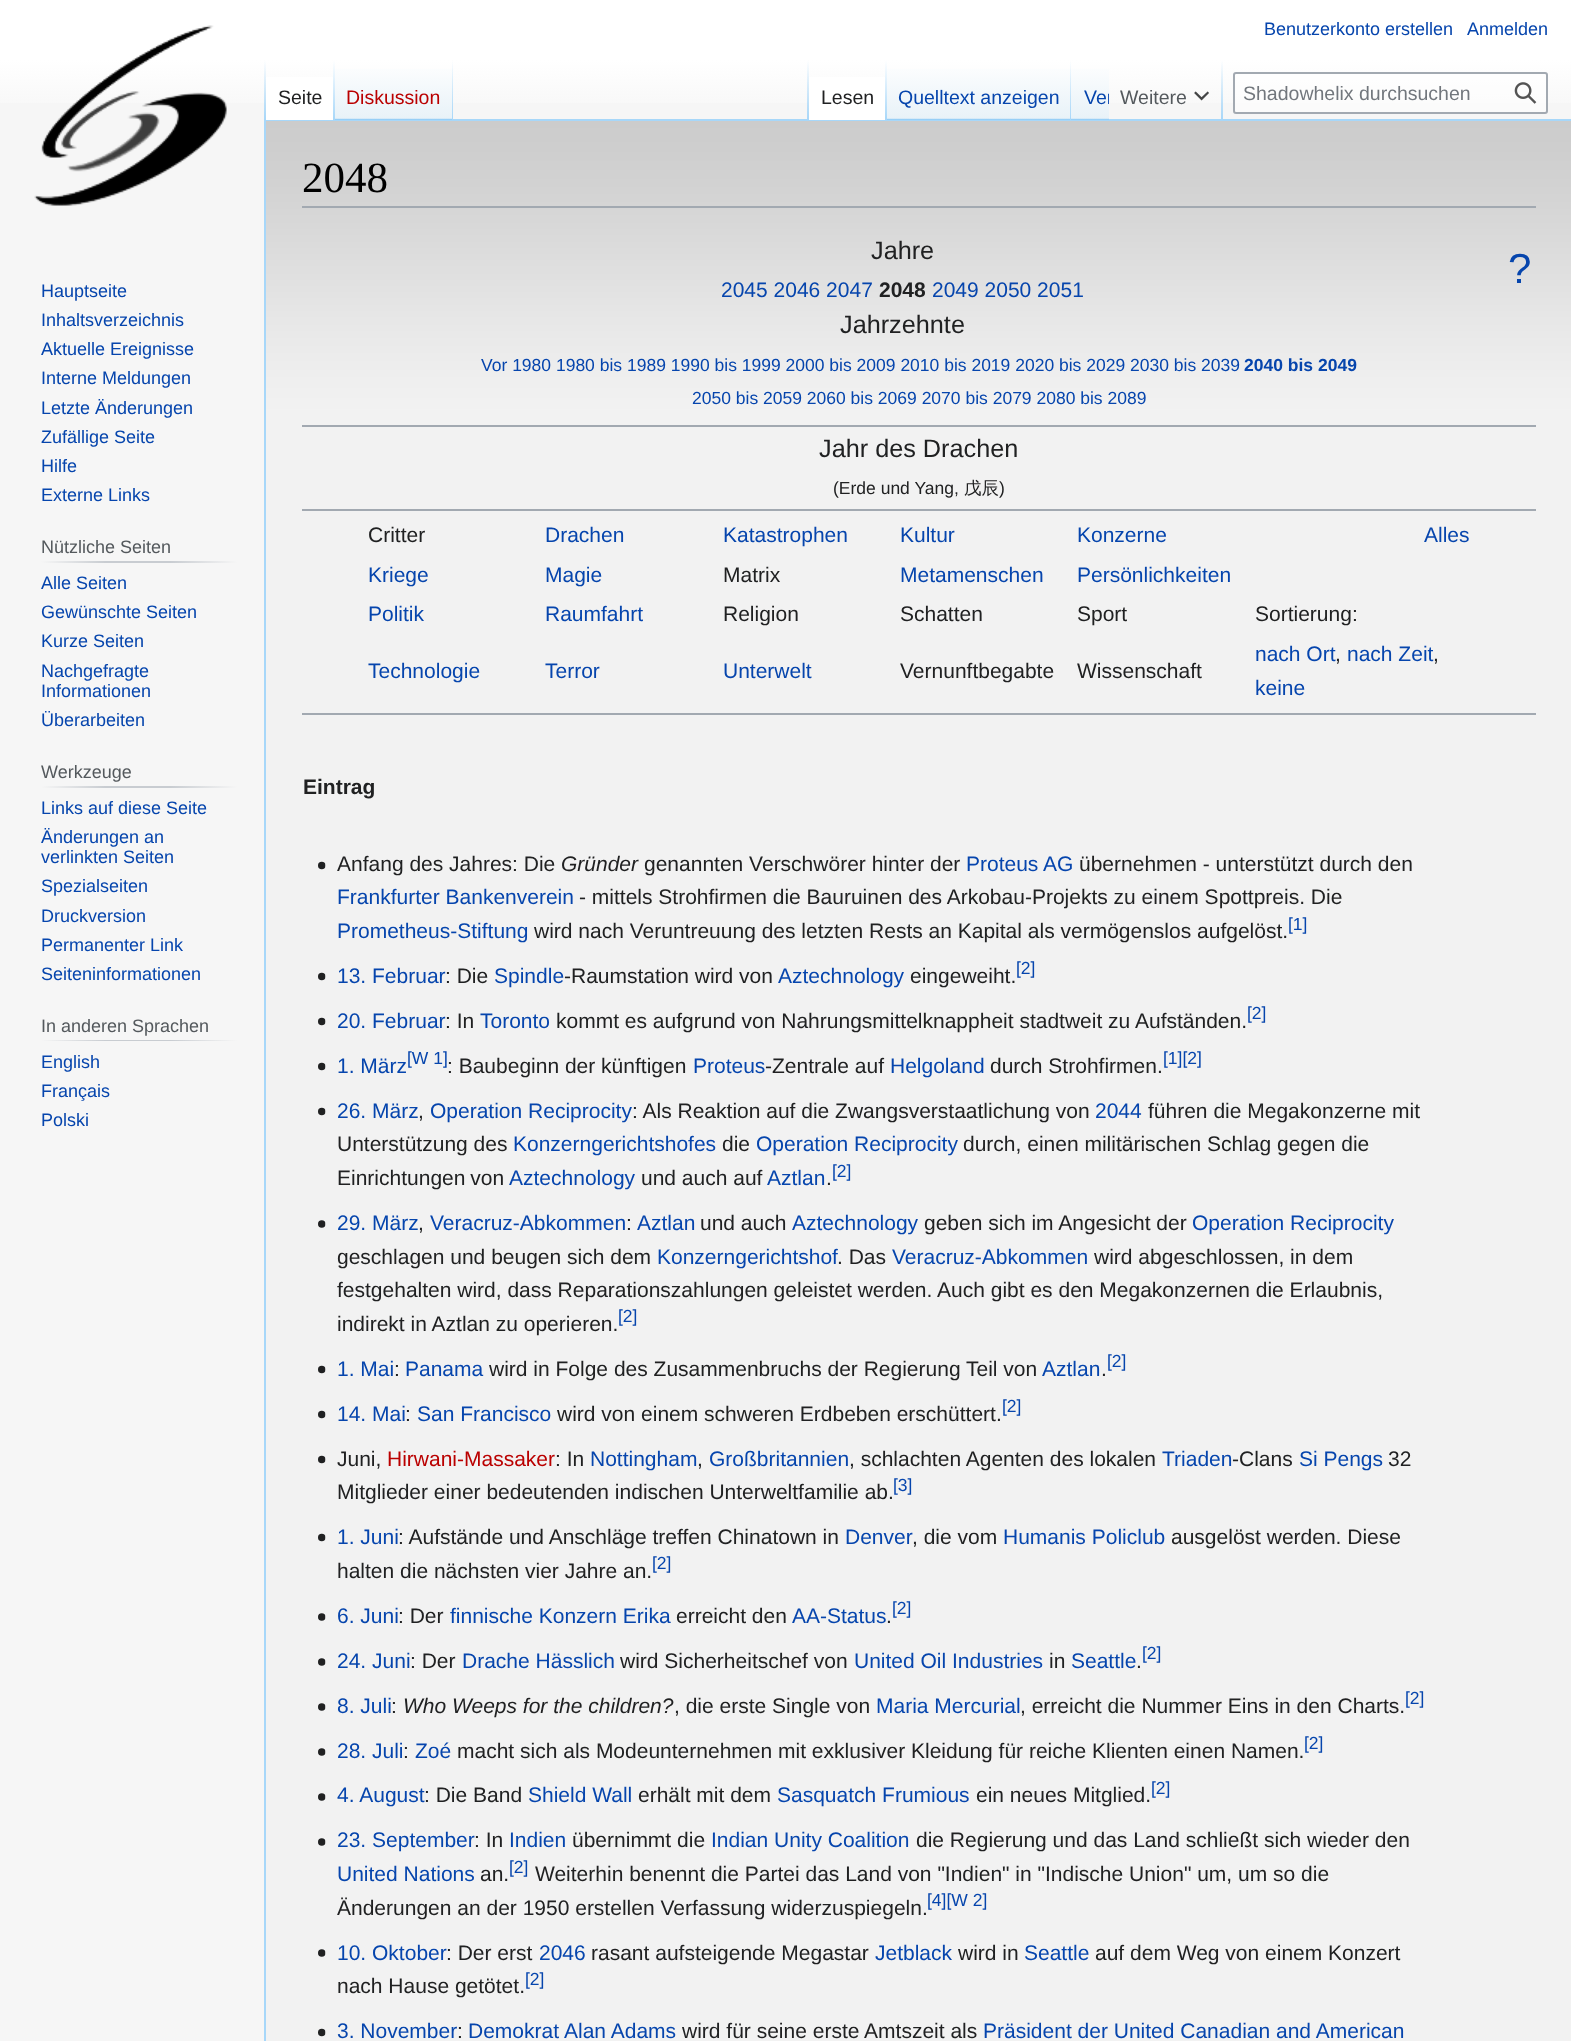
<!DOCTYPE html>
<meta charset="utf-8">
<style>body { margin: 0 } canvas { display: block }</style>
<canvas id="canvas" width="1571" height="2041"></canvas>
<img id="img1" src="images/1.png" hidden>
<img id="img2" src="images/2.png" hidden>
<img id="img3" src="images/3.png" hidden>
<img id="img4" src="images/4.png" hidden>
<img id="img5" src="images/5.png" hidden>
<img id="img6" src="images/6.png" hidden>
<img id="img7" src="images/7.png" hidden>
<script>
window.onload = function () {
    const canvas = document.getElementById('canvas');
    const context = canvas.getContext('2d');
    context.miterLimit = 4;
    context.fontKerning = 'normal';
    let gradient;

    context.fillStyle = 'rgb(246, 246, 246)';
    context.fillRect(0, 0, 1571, 2041);
    gradient = context.createLinearGradient(786, 0, 786, 120);
    gradient.addColorStop(0.5, 'rgb(255, 255, 255)');
    gradient.addColorStop(1, 'rgb(246, 246, 246)');
    context.fillStyle = gradient;
    context.fillRect(0, 0, 1571, 103);
    context.fillStyle = 'rgb(167, 215, 249)';
    context.fillRect(264, 119, 1307, 2);
    context.fillRect(264, 119, 2, 1922);
    gradient = context.createLinearGradient(265, 60, 265, 120);
    gradient.addColorStop(0, 'rgba(167, 215, 249, 0)');
    gradient.addColorStop(1, 'rgb(167, 215, 249)');
    context.fillStyle = gradient;
    context.fillRect(264, 60, 2, 60);
    context.fillStyle = 'rgb(255, 255, 255)';
    context.fillRect(266, 77, 67, 43);
    gradient = context.createLinearGradient(334, 60, 334, 120);
    gradient.addColorStop(0, 'rgb(255, 255, 255)');
    gradient.addColorStop(1, 'rgb(167, 215, 249)');
    context.fillStyle = gradient;
    context.fillRect(333, 60, 2, 60);
    gradient = context.createLinearGradient(394, 120, 394, 60);
    gradient.addColorStop(0, 'rgb(119, 193, 246)');
    gradient.addColorStop(0.03, 'rgb(232, 242, 248)');
    gradient.addColorStop(1, 'rgb(255, 255, 255)');
    context.fillStyle = gradient;
    context.fillRect(335, 69, 118, 51);
    gradient = context.createLinearGradient(452, 60, 452, 120);
    gradient.addColorStop(0, 'rgba(167, 215, 249, 0)');
    gradient.addColorStop(1, 'rgb(167, 215, 249)');
    context.fillStyle = gradient;
    context.fillRect(452, 60, 1, 60);
    gradient = context.createLinearGradient(808, 60, 808, 120);
    gradient.addColorStop(0, 'rgba(167, 215, 249, 0)');
    gradient.addColorStop(1, 'rgb(167, 215, 249)');
    context.fillStyle = gradient;
    context.fillRect(807, 60, 2, 60);
    context.fillStyle = 'rgb(255, 255, 255)';
    context.fillRect(809, 77, 76, 43);
    gradient = context.createLinearGradient(886, 60, 886, 120);
    gradient.addColorStop(0, 'rgb(255, 255, 255)');
    gradient.addColorStop(1, 'rgb(167, 215, 249)');
    context.fillStyle = gradient;
    context.fillRect(885, 60, 2, 60);
    gradient = context.createLinearGradient(979, 120, 979, 60);
    gradient.addColorStop(0, 'rgb(119, 193, 246)');
    gradient.addColorStop(0.03, 'rgb(232, 242, 248)');
    gradient.addColorStop(1, 'rgb(255, 255, 255)');
    context.fillStyle = gradient;
    context.fillRect(887, 69, 184, 51);
    gradient = context.createLinearGradient(1070, 60, 1070, 120);
    gradient.addColorStop(0, 'rgba(167, 215, 249, 0)');
    gradient.addColorStop(1, 'rgb(167, 215, 249)');
    context.fillStyle = gradient;
    context.fillRect(1070, 60, 1, 60);
    gradient = context.createLinearGradient(1090, 120, 1090, 60);
    gradient.addColorStop(0, 'rgb(119, 193, 246)');
    gradient.addColorStop(0.03, 'rgb(232, 242, 248)');
    gradient.addColorStop(1, 'rgb(255, 255, 255)');
    context.fillStyle = gradient;
    context.fillRect(1071, 69, 38, 51);
    gradient = context.createLinearGradient(1222, 60, 1222, 120);
    gradient.addColorStop(0, 'rgba(167, 215, 249, 0)');
    gradient.addColorStop(1, 'rgb(167, 215, 249)');
    context.fillStyle = gradient;
    context.fillRect(1221, 60, 2, 60);
    context.drawImage(document.getElementById('img1'), 1194, 91, 15, 10);
    context.fillStyle = 'rgba(255, 255, 255, 0.5)';
    context.beginPath();
    context.roundRect(1234, 73, 313, 40, 2);
    context.fill();
    context.strokeStyle = 'rgb(162, 169, 177)';
    context.lineWidth = 2;
    context.stroke();
    context.drawImage(document.getElementById('img2'), 1514, 82, 23, 22);
    context.drawImage(document.getElementById('img3'), 34, 25, 193, 181);
    gradient = context.createLinearGradient(41, 562, 237, 562);
    gradient.addColorStop(0, 'rgb(246, 246, 246)');
    gradient.addColorStop(0.33, 'rgb(200, 204, 209)');
    gradient.addColorStop(0.66, 'rgb(200, 204, 209)');
    gradient.addColorStop(1, 'rgb(246, 246, 246)');
    context.fillStyle = gradient;
    context.fillRect(41, 561, 196, 2);
    gradient = context.createLinearGradient(41, 787, 237, 787);
    gradient.addColorStop(0, 'rgb(246, 246, 246)');
    gradient.addColorStop(0.33, 'rgb(200, 204, 209)');
    gradient.addColorStop(0.66, 'rgb(200, 204, 209)');
    gradient.addColorStop(1, 'rgb(246, 246, 246)');
    context.fillStyle = gradient;
    context.fillRect(41, 786, 196, 2);
    gradient = context.createLinearGradient(41, 1040, 237, 1040);
    gradient.addColorStop(0, 'rgb(246, 246, 246)');
    gradient.addColorStop(0.33, 'rgb(200, 204, 209)');
    gradient.addColorStop(0.66, 'rgb(200, 204, 209)');
    gradient.addColorStop(1, 'rgb(246, 246, 246)');
    context.fillStyle = gradient;
    context.fillRect(41, 1040, 196, 1);
    context.fillStyle = 'rgb(242, 242, 242)';
    context.fillRect(266, 409, 1305, 1632);
    context.drawImage(document.getElementById('img4'), 266, 121, 1305, 288);
    context.fillStyle = 'rgb(162, 169, 177)';
    context.fillRect(302, 206, 1234, 2);
    context.fillRect(302, 425, 1234, 2);
    context.fillRect(302, 509, 1234, 2);
    context.fillRect(302, 713, 1234, 2);
    context.drawImage(document.getElementById('img5'), 318, 861, 8, 9);
    context.drawImage(document.getElementById('img5'), 318, 972, 8, 9);
    context.drawImage(document.getElementById('img5'), 318, 1017, 8, 9);
    context.drawImage(document.getElementById('img5'), 318, 1062, 8, 9);
    context.drawImage(document.getElementById('img5'), 318, 1107, 8, 9);
    context.drawImage(document.getElementById('img6'), 318, 1220, 8, 8);
    context.drawImage(document.getElementById('img5'), 318, 1365, 8, 9);
    context.drawImage(document.getElementById('img5'), 318, 1410, 8, 9);
    context.drawImage(document.getElementById('img5'), 318, 1455, 8, 9);
    context.drawImage(document.getElementById('img5'), 318, 1533, 8, 9);
    context.drawImage(document.getElementById('img6'), 318, 1613, 8, 8);
    context.drawImage(document.getElementById('img6'), 318, 1658, 8, 8);
    context.drawImage(document.getElementById('img6'), 318, 1703, 8, 8);
    context.drawImage(document.getElementById('img6'), 318, 1748, 8, 8);
    context.drawImage(document.getElementById('img6'), 318, 1793, 8, 8);
    context.drawImage(document.getElementById('img6'), 318, 1838, 8, 8);
    context.drawImage(document.getElementById('img6'), 318, 1949, 8, 8);
    context.drawImage(document.getElementById('img7'), 318, 2028, 8, 9);
    context.font = '18px Liberation Sans';
    context.fillStyle = 'rgb(6, 69, 173)';
    context.fillText('Benutzerkonto erstellen', 1264, 35);
    context.fillText('Anmelden', 1467, 35);
    context.font = '19.5px Liberation Sans';
    context.fillStyle = 'rgb(32, 33, 34)';
    context.fillText('Seite', 278, 104);
    context.fillStyle = 'rgb(186, 0, 0)';
    context.fillText('Diskussion', 346, 104);
    context.fillStyle = 'rgb(32, 33, 34)';
    context.fillText('Lesen', 821, 104);
    context.fillStyle = 'rgb(6, 69, 173)';
    context.fillText('Quelltext anzeigen', 898, 104);
    context.save();
    context.beginPath();
    context.rect(1071, 60, 38, 60);
    context.clip();
    context.fillText('Ver', 1084, 104);
    context.restore();
    context.fillStyle = 'rgb(84, 89, 93)';
    context.fillText('Weitere', 1120, 104);
    context.fillStyle = 'rgb(114, 119, 125)';
    context.fillText('Shadowhelix durchsuchen', 1243, 100);
    context.font = '18px Liberation Sans';
    context.fillStyle = 'rgb(6, 69, 173)';
    context.fillText('Hauptseite', 41, 297);
    context.fillText('Inhaltsverzeichnis', 41, 326);
    context.fillText('Aktuelle Ereignisse', 41, 355);
    context.fillText('Interne Meldungen', 41, 384);
    context.fillText('Letzte Änderungen', 41, 414);
    context.fillText('Zufällige Seite', 41, 443);
    context.fillText('Hilfe', 41, 472);
    context.fillText('Externe Links', 41, 501);
    context.fillStyle = 'rgb(84, 89, 93)';
    context.fillText('Nützliche Seiten', 41, 553);
    context.fillStyle = 'rgb(6, 69, 173)';
    context.fillText('Alle Seiten', 41, 589);
    context.fillText('Gewünschte Seiten', 41, 618);
    context.fillText('Kurze Seiten', 41, 647);
    context.fillText('Nachgefragte', 41, 677);
    context.fillText('Informationen', 41, 697);
    context.fillText('Überarbeiten', 41, 726);
    context.fillStyle = 'rgb(84, 89, 93)';
    context.fillText('Werkzeuge', 41, 778);
    context.fillStyle = 'rgb(6, 69, 173)';
    context.fillText('Links auf diese Seite', 41, 814);
    context.fillText('Änderungen an', 41, 843);
    context.fillText('verlinkten Seiten', 41, 863);
    context.fillText('Spezialseiten', 41, 892);
    context.fillText('Druckversion', 41, 922);
    context.fillText('Permanenter Link', 41, 951);
    context.fillText('Seiteninformationen', 41, 980);
    context.fillStyle = 'rgb(84, 89, 93)';
    context.fillText('In anderen Sprachen', 41, 1032);
    context.fillStyle = 'rgb(6, 69, 173)';
    context.fillText('English', 41, 1068);
    context.fillText('Français', 41, 1097);
    context.fillText('Polski', 41, 1126);
    context.font = '43px Liberation Serif';
    context.fillStyle = 'rgb(0, 0, 0)';
    context.fillText('2048', 302, 192);
    context.font = '25.25px Liberation Sans';
    context.fillStyle = 'rgb(32, 33, 34)';
    context.fillText('Jahre', 871, 259);
    context.font = '21px Liberation Sans';
    context.fillStyle = 'rgb(6, 69, 173)';
    context.fillText('2045 2046 2047', 721, 297);
    context.font = 'bold 21px Liberation Sans';
    context.fillStyle = 'rgb(32, 33, 34)';
    context.fillText('2048', 879, 297);
    context.font = '21px Liberation Sans';
    context.fillStyle = 'rgb(6, 69, 173)';
    context.fillText('2049 2050 2051', 932, 297);
    context.font = '25.25px Liberation Sans';
    context.fillStyle = 'rgb(32, 33, 34)';
    context.fillText('Jahrzehnte', 840, 333);
    context.font = '17.5px Liberation Sans';
    context.fillStyle = 'rgb(6, 69, 173)';
    context.fillText('Vor 1980 1980 bis 1989 1990 bis 1999 2000 bis 2009 2010 bis 2019 2020 bis 2029 2030 bis 2039', 481, 371);
    context.font = 'bold 17.5px Liberation Sans';
    context.fillText('2040 bis 2049', 1244, 371);
    context.font = '17.5px Liberation Sans';
    context.fillText('2050 bis 2059 2060 bis 2069 2070 bis 2079 2080 bis 2089', 692, 404);
    context.font = '42px Liberation Sans';
    context.fillText('?', 1508, 283);
    context.font = '25.25px Liberation Sans';
    context.fillStyle = 'rgb(32, 33, 34)';
    context.fillText('Jahr des Drachen', 819, 457);
    context.font = '17.5px Liberation Sans';
    context.fillText('(Erde und Yang,', 833, 494);
    context.font = '500 17.5px WenQuanYi Zen Hei';
    context.fillText('戊辰', 964, 494);
    context.font = '17.5px Liberation Sans';
    context.fillText(')', 999, 494);
    context.font = '21px Liberation Sans';
    context.fillText('Critter', 368, 542);
    context.fillStyle = 'rgb(6, 69, 173)';
    context.fillText('Drachen', 545, 542);
    context.fillText('Katastrophen', 723, 542);
    context.fillText('Kultur', 900, 542);
    context.fillText('Konzerne', 1077, 542);
    context.fillText('Alles', 1424, 542);
    context.fillText('Kriege', 368, 582);
    context.fillText('Magie', 545, 582);
    context.fillStyle = 'rgb(32, 33, 34)';
    context.fillText('Matrix', 723, 582);
    context.fillStyle = 'rgb(6, 69, 173)';
    context.fillText('Metamenschen', 900, 582);
    context.fillText('Persönlichkeiten', 1077, 582);
    context.fillText('Politik', 368, 621);
    context.fillText('Raumfahrt', 545, 621);
    context.fillStyle = 'rgb(32, 33, 34)';
    context.fillText('Religion', 723, 621);
    context.fillText('Schatten', 900, 621);
    context.fillText('Sport', 1077, 621);
    context.fillText('Sortierung:', 1255, 621);
    context.fillStyle = 'rgb(6, 69, 173)';
    context.fillText('Technologie', 368, 678);
    context.fillText('Terror', 545, 678);
    context.fillText('Unterwelt', 723, 678);
    context.fillStyle = 'rgb(32, 33, 34)';
    context.fillText('Vernunftbegabte', 900, 678);
    context.fillText('Wissenschaft', 1077, 678);
    context.fillStyle = 'rgb(6, 69, 173)';
    context.fillText('nach Ort', 1255, 661);
    context.fillStyle = 'rgb(32, 33, 34)';
    context.fillText(',', 1335, 661);
    context.fillStyle = 'rgb(6, 69, 173)';
    context.fillText('nach Zeit', 1347, 661);
    context.fillStyle = 'rgb(32, 33, 34)';
    context.fillText(',', 1433, 661);
    context.fillStyle = 'rgb(6, 69, 173)';
    context.fillText('keine', 1255, 695);
    context.font = 'bold 21px Liberation Sans';
    context.fillStyle = 'rgb(32, 33, 34)';
    context.fillText('Eintrag', 303, 794);
    context.font = '21px Liberation Sans';
    context.fillText('Anfang des Jahres: Die', 337, 871);
    context.font = 'italic 21px Liberation Sans';
    context.fillText('Gründer', 561, 871);
    context.font = '21px Liberation Sans';
    context.fillText('genannten Verschwörer hinter der', 644, 871);
    context.fillStyle = 'rgb(6, 69, 173)';
    context.fillText('Proteus AG', 966, 871);
    context.fillStyle = 'rgb(32, 33, 34)';
    context.fillText('übernehmen - unterstützt durch den', 1079, 871);
    context.fillStyle = 'rgb(6, 69, 173)';
    context.fillText('Frankfurter Bankenverein', 337, 904);
    context.fillStyle = 'rgb(32, 33, 34)';
    context.fillText('- mittels Strohfirmen die Bauruinen des Arkobau-Projekts zu einem Spottpreis. Die', 579, 904);
    context.fillStyle = 'rgb(6, 69, 173)';
    context.fillText('Prometheus-Stiftung', 337, 938);
    context.fillStyle = 'rgb(32, 33, 34)';
    context.fillText('wird nach Veruntreuung des letzten Rests an Kapital als vermögenslos aufgelöst.', 534, 938);
    context.font = '17.5px Liberation Sans';
    context.fillStyle = 'rgb(6, 69, 173)';
    context.fillText('[1]', 1288, 930);
    context.font = '21px Liberation Sans';
    context.fillText('13. Februar', 337, 983);
    context.fillStyle = 'rgb(32, 33, 34)';
    context.fillText(': Die', 445, 983);
    context.fillStyle = 'rgb(6, 69, 173)';
    context.fillText('Spindle', 494, 983);
    context.fillStyle = 'rgb(32, 33, 34)';
    context.fillText('-Raumstation wird von', 564, 983);
    context.fillStyle = 'rgb(6, 69, 173)';
    context.fillText('Aztechnology', 778, 983);
    context.fillStyle = 'rgb(32, 33, 34)';
    context.fillText('eingeweiht.', 910, 983);
    context.font = '17.5px Liberation Sans';
    context.fillStyle = 'rgb(6, 69, 173)';
    context.fillText('[2]', 1016, 974);
    context.font = '21px Liberation Sans';
    context.fillText('20. Februar', 337, 1028);
    context.fillStyle = 'rgb(32, 33, 34)';
    context.fillText(': In', 445, 1028);
    context.fillStyle = 'rgb(6, 69, 173)';
    context.fillText('Toronto', 480, 1028);
    context.fillStyle = 'rgb(32, 33, 34)';
    context.fillText('kommt es aufgrund von Nahrungsmittelknappheit stadtweit zu Aufständen.', 556, 1028);
    context.font = '17.5px Liberation Sans';
    context.fillStyle = 'rgb(6, 69, 173)';
    context.fillText('[2]', 1247, 1019);
    context.font = '21px Liberation Sans';
    context.fillText('1. März', 337, 1073);
    context.font = '17.5px Liberation Sans';
    context.fillText('[W 1]', 407, 1064);
    context.font = '21px Liberation Sans';
    context.fillStyle = 'rgb(32, 33, 34)';
    context.fillText(': Baubeginn der künftigen', 447, 1073);
    context.fillStyle = 'rgb(6, 69, 173)';
    context.fillText('Proteus', 693, 1073);
    context.fillStyle = 'rgb(32, 33, 34)';
    context.fillText('-Zentrale auf', 765, 1073);
    context.fillStyle = 'rgb(6, 69, 173)';
    context.fillText('Helgoland', 890, 1073);
    context.fillStyle = 'rgb(32, 33, 34)';
    context.fillText('durch Strohfirmen.', 990, 1073);
    context.font = '17.5px Liberation Sans';
    context.fillStyle = 'rgb(6, 69, 173)';
    context.fillText('[1][2]', 1163, 1064);
    context.font = '21px Liberation Sans';
    context.fillText('26. März', 337, 1118);
    context.fillStyle = 'rgb(32, 33, 34)';
    context.fillText(',', 418, 1118);
    context.fillStyle = 'rgb(6, 69, 173)';
    context.fillText('Operation Reciprocity', 430, 1118);
    context.fillStyle = 'rgb(32, 33, 34)';
    context.fillText(': Als Reaktion auf die Zwangsverstaatlichung von', 632, 1118);
    context.fillStyle = 'rgb(6, 69, 173)';
    context.fillText('2044', 1095, 1118);
    context.fillStyle = 'rgb(32, 33, 34)';
    context.fillText('führen die Megakonzerne mit', 1148, 1118);
    context.fillText('Unterstützung des', 337, 1151);
    context.fillStyle = 'rgb(6, 69, 173)';
    context.fillText('Konzerngerichtshofes', 513, 1151);
    context.fillStyle = 'rgb(32, 33, 34)';
    context.fillText('die', 722, 1151);
    context.fillStyle = 'rgb(6, 69, 173)';
    context.fillText('Operation Reciprocity', 756, 1151);
    context.fillStyle = 'rgb(32, 33, 34)';
    context.fillText('durch, einen militärischen Schlag gegen die', 963, 1151);
    context.wordSpacing = '-1px';
    context.fillText('Einrichtungen von', 337, 1185);
    context.wordSpacing = '0px';
    context.fillStyle = 'rgb(6, 69, 173)';
    context.fillText('Aztechnology', 509, 1185);
    context.fillStyle = 'rgb(32, 33, 34)';
    context.fillText('und auch auf', 641, 1185);
    context.fillStyle = 'rgb(6, 69, 173)';
    context.fillText('Aztlan', 767, 1185);
    context.fillStyle = 'rgb(32, 33, 34)';
    context.fillText('.', 826, 1185);
    context.font = '17.5px Liberation Sans';
    context.fillStyle = 'rgb(6, 69, 173)';
    context.fillText('[2]', 832, 1177);
    context.font = '21px Liberation Sans';
    context.fillText('29. März', 337, 1230);
    context.fillStyle = 'rgb(32, 33, 34)';
    context.fillText(',', 418, 1230);
    context.fillStyle = 'rgb(6, 69, 173)';
    context.fillText('Veracruz-Abkommen', 430, 1230);
    context.fillStyle = 'rgb(32, 33, 34)';
    context.fillText(':', 626, 1230);
    context.fillStyle = 'rgb(6, 69, 173)';
    context.fillText('Aztlan', 637, 1230);
    context.fillStyle = 'rgb(32, 33, 34)';
    context.fillText('und auch', 700, 1230);
    context.fillStyle = 'rgb(6, 69, 173)';
    context.fillText('Aztechnology', 792, 1230);
    context.fillStyle = 'rgb(32, 33, 34)';
    context.fillText('geben sich im Angesicht der', 924, 1230);
    context.fillStyle = 'rgb(6, 69, 173)';
    context.fillText('Operation Reciprocity', 1192, 1230);
    context.fillStyle = 'rgb(32, 33, 34)';
    context.fillText('geschlagen und beugen sich dem', 337, 1264);
    context.fillStyle = 'rgb(6, 69, 173)';
    context.fillText('Konzerngerichtshof', 657, 1264);
    context.fillStyle = 'rgb(32, 33, 34)';
    context.fillText('. Das', 837, 1264);
    context.fillStyle = 'rgb(6, 69, 173)';
    context.fillText('Veracruz-Abkommen', 892, 1264);
    context.fillStyle = 'rgb(32, 33, 34)';
    context.fillText('wird abgeschlossen, in dem', 1094, 1264);
    context.fillText('festgehalten wird, dass Reparationszahlungen geleistet werden. Auch gibt es den Megakonzernen die Erlaubnis,', 337, 1297);
    context.fillText('indirekt in Aztlan zu operieren.', 337, 1331);
    context.font = '17.5px Liberation Sans';
    context.fillStyle = 'rgb(6, 69, 173)';
    context.fillText('[2]', 618, 1322);
    context.font = '21px Liberation Sans';
    context.fillText('1. Mai', 337, 1376);
    context.fillStyle = 'rgb(32, 33, 34)';
    context.fillText(':', 394, 1376);
    context.fillStyle = 'rgb(6, 69, 173)';
    context.fillText('Panama', 405, 1376);
    context.fillStyle = 'rgb(32, 33, 34)';
    context.fillText('wird in Folge des Zusammenbruchs der Regierung Teil von', 489, 1376);
    context.fillStyle = 'rgb(6, 69, 173)';
    context.fillText('Aztlan', 1042, 1376);
    context.fillStyle = 'rgb(32, 33, 34)';
    context.fillText('.', 1101, 1376);
    context.font = '17.5px Liberation Sans';
    context.fillStyle = 'rgb(6, 69, 173)';
    context.fillText('[2]', 1107, 1367);
    context.font = '21px Liberation Sans';
    context.fillText('14. Mai', 337, 1421);
    context.fillStyle = 'rgb(32, 33, 34)';
    context.fillText(':', 405, 1421);
    context.fillStyle = 'rgb(6, 69, 173)';
    context.fillText('San Francisco', 417, 1421);
    context.fillStyle = 'rgb(32, 33, 34)';
    context.fillText('wird von einem schweren Erdbeben erschüttert.', 557, 1421);
    context.font = '17.5px Liberation Sans';
    context.fillStyle = 'rgb(6, 69, 173)';
    context.fillText('[2]', 1002, 1412);
    context.font = '21px Liberation Sans';
    context.fillStyle = 'rgb(32, 33, 34)';
    context.fillText('Juni,', 337, 1466);
    context.fillStyle = 'rgb(186, 0, 0)';
    context.fillText('Hirwani-Massaker', 387, 1466);
    context.fillStyle = 'rgb(32, 33, 34)';
    context.fillText(': In', 555, 1466);
    context.fillStyle = 'rgb(6, 69, 173)';
    context.fillText('Nottingham', 590, 1466);
    context.fillStyle = 'rgb(32, 33, 34)';
    context.fillText(',', 697, 1466);
    context.fillStyle = 'rgb(6, 69, 173)';
    context.fillText('Großbritannien', 709, 1466);
    context.fillStyle = 'rgb(32, 33, 34)';
    context.fillText(', schlachten Agenten des lokalen', 849, 1466);
    context.fillStyle = 'rgb(6, 69, 173)';
    context.fillText('Triaden', 1162, 1466);
    context.fillStyle = 'rgb(32, 33, 34)';
    context.fillText('-Clans', 1232, 1466);
    context.fillStyle = 'rgb(6, 69, 173)';
    context.fillText('Si Pengs', 1299, 1466);
    context.fillStyle = 'rgb(32, 33, 34)';
    context.fillText('32', 1388, 1466);
    context.fillText('Mitglieder einer bedeutenden indischen Unterweltfamilie ab.', 337, 1499);
    context.font = '17.5px Liberation Sans';
    context.fillStyle = 'rgb(6, 69, 173)';
    context.fillText('[3]', 893, 1491);
    context.font = '21px Liberation Sans';
    context.fillText('1. Juni', 337, 1544);
    context.fillStyle = 'rgb(32, 33, 34)';
    context.fillText(': Aufstände und Anschläge treffen Chinatown in', 398, 1544);
    context.fillStyle = 'rgb(6, 69, 173)';
    context.fillText('Denver', 845, 1544);
    context.fillStyle = 'rgb(32, 33, 34)';
    context.fillText(', die vom', 912, 1544);
    context.fillStyle = 'rgb(6, 69, 173)';
    context.fillText('Humanis Policlub', 1003, 1544);
    context.fillStyle = 'rgb(32, 33, 34)';
    context.fillText('ausgelöst werden. Diese', 1171, 1544);
    context.fillText('halten die nächsten vier Jahre an.', 337, 1578);
    context.font = '17.5px Liberation Sans';
    context.fillStyle = 'rgb(6, 69, 173)';
    context.fillText('[2]', 652, 1569);
    context.font = '21px Liberation Sans';
    context.fillText('6. Juni', 337, 1623);
    context.fillStyle = 'rgb(32, 33, 34)';
    context.fillText(': Der', 398, 1623);
    context.fillStyle = 'rgb(6, 69, 173)';
    context.fillText('finnische Konzern Erika', 450, 1623);
    context.fillStyle = 'rgb(32, 33, 34)';
    context.fillText('erreicht den', 676, 1623);
    context.fillStyle = 'rgb(6, 69, 173)';
    context.fillText('AA-Status', 792, 1623);
    context.fillStyle = 'rgb(32, 33, 34)';
    context.fillText('.', 886, 1623);
    context.font = '17.5px Liberation Sans';
    context.fillStyle = 'rgb(6, 69, 173)';
    context.fillText('[2]', 892, 1614);
    context.font = '21px Liberation Sans';
    context.fillText('24. Juni', 337, 1668);
    context.fillStyle = 'rgb(32, 33, 34)';
    context.fillText(': Der', 410, 1668);
    context.fillStyle = 'rgb(6, 69, 173)';
    context.fillText('Drache Hässlich', 462, 1668);
    context.fillStyle = 'rgb(32, 33, 34)';
    context.fillText('wird Sicherheitschef von', 620, 1668);
    context.fillStyle = 'rgb(6, 69, 173)';
    context.fillText('United Oil Industries', 854, 1668);
    context.fillStyle = 'rgb(32, 33, 34)';
    context.fillText('in', 1049, 1668);
    context.fillStyle = 'rgb(6, 69, 173)';
    context.fillText('Seattle', 1071, 1668);
    context.fillStyle = 'rgb(32, 33, 34)';
    context.fillText('.', 1136, 1668);
    context.font = '17.5px Liberation Sans';
    context.fillStyle = 'rgb(6, 69, 173)';
    context.fillText('[2]', 1142, 1659);
    context.font = '21px Liberation Sans';
    context.fillText('8. Juli', 337, 1713);
    context.fillStyle = 'rgb(32, 33, 34)';
    context.fillText(':', 391, 1713);
    context.font = 'italic 21px Liberation Sans';
    context.fillText('Who Weeps for the children?', 403, 1713);
    context.font = '21px Liberation Sans';
    context.fillText(', die erste Single von', 674, 1713);
    context.fillStyle = 'rgb(6, 69, 173)';
    context.fillText('Maria Mercurial', 876, 1713);
    context.fillStyle = 'rgb(32, 33, 34)';
    context.fillText(', erreicht die Nummer Eins in den Charts.', 1020, 1713);
    context.font = '17.5px Liberation Sans';
    context.fillStyle = 'rgb(6, 69, 173)';
    context.fillText('[2]', 1405, 1704);
    context.font = '21px Liberation Sans';
    context.fillText('28. Juli', 337, 1758);
    context.fillStyle = 'rgb(32, 33, 34)';
    context.fillText(':', 403, 1758);
    context.fillStyle = 'rgb(6, 69, 173)';
    context.fillText('Zoé', 415, 1758);
    context.fillStyle = 'rgb(32, 33, 34)';
    context.fillText('macht sich als Modeunternehmen mit exklusiver Kleidung für reiche Klienten einen Namen.', 457, 1758);
    context.font = '17.5px Liberation Sans';
    context.fillStyle = 'rgb(6, 69, 173)';
    context.fillText('[2]', 1304, 1749);
    context.font = '21px Liberation Sans';
    context.fillText('4. August', 337, 1802);
    context.fillStyle = 'rgb(32, 33, 34)';
    context.fillText(': Die Band', 424, 1802);
    context.fillStyle = 'rgb(6, 69, 173)';
    context.fillText('Shield Wall', 528, 1802);
    context.fillStyle = 'rgb(32, 33, 34)';
    context.fillText('erhält mit dem', 638, 1802);
    context.fillStyle = 'rgb(6, 69, 173)';
    context.fillText('Sasquatch Frumious', 777, 1802);
    context.fillStyle = 'rgb(32, 33, 34)';
    context.fillText('ein neues Mitglied.', 976, 1802);
    context.font = '17.5px Liberation Sans';
    context.fillStyle = 'rgb(6, 69, 173)';
    context.fillText('[2]', 1151, 1794);
    context.font = '21px Liberation Sans';
    context.fillText('23. September', 337, 1847);
    context.fillStyle = 'rgb(32, 33, 34)';
    context.fillText(': In', 474, 1847);
    context.fillStyle = 'rgb(6, 69, 173)';
    context.fillText('Indien', 509, 1847);
    context.fillStyle = 'rgb(32, 33, 34)';
    context.fillText('übernimmt die', 572, 1847);
    context.fillStyle = 'rgb(6, 69, 173)';
    context.fillText('Indian Unity Coalition', 711, 1847);
    context.fillStyle = 'rgb(32, 33, 34)';
    context.fillText('die Regierung und das Land schließt sich wieder den', 916, 1847);
    context.fillStyle = 'rgb(6, 69, 173)';
    context.fillText('United Nations', 337, 1881);
    context.fillStyle = 'rgb(32, 33, 34)';
    context.fillText('an.', 480, 1881);
    context.font = '17.5px Liberation Sans';
    context.fillStyle = 'rgb(6, 69, 173)';
    context.fillText('[2]', 509, 1873);
    context.font = '21px Liberation Sans';
    context.fillStyle = 'rgb(32, 33, 34)';
    context.fillText('Weiterhin benennt die Partei das Land von "Indien" in "Indische Union" um, um so die', 535, 1881);
    context.fillText('Änderungen an der 1950 erstellen Verfassung widerzuspiegeln.', 337, 1915);
    context.font = '17.5px Liberation Sans';
    context.fillStyle = 'rgb(6, 69, 173)';
    context.fillText('[4][W 2]', 927, 1906);
    context.font = '21px Liberation Sans';
    context.fillText('10. Oktober', 337, 1960);
    context.fillStyle = 'rgb(32, 33, 34)';
    context.fillText(': Der erst', 446, 1960);
    context.fillStyle = 'rgb(6, 69, 173)';
    context.fillText('2046', 539, 1960);
    context.fillStyle = 'rgb(32, 33, 34)';
    context.fillText('rasant aufsteigende Megastar', 591, 1960);
    context.fillStyle = 'rgb(6, 69, 173)';
    context.fillText('Jetblack', 875, 1960);
    context.fillStyle = 'rgb(32, 33, 34)';
    context.fillText('wird in', 958, 1960);
    context.fillStyle = 'rgb(6, 69, 173)';
    context.fillText('Seattle', 1024, 1960);
    context.fillStyle = 'rgb(32, 33, 34)';
    context.fillText('auf dem Weg von einem Konzert', 1095, 1960);
    context.fillText('nach Hause getötet.', 337, 1993);
    context.font = '17.5px Liberation Sans';
    context.fillStyle = 'rgb(6, 69, 173)';
    context.fillText('[2]', 525, 1985);
    context.font = '21px Liberation Sans';
    context.fillText('3. November', 337, 2038);
    context.fillStyle = 'rgb(32, 33, 34)';
    context.fillText(':', 457, 2038);
    context.fillStyle = 'rgb(6, 69, 173)';
    context.fillText('Demokrat', 468, 2038);
    context.fillText('Alan Adams', 564, 2038);
    context.fillStyle = 'rgb(32, 33, 34)';
    context.fillText('wird für seine erste Amtszeit als', 682, 2038);
    context.fillStyle = 'rgb(6, 69, 173)';
    context.fillText('Präsident der United Canadian and American', 983, 2038);
};
</script>
